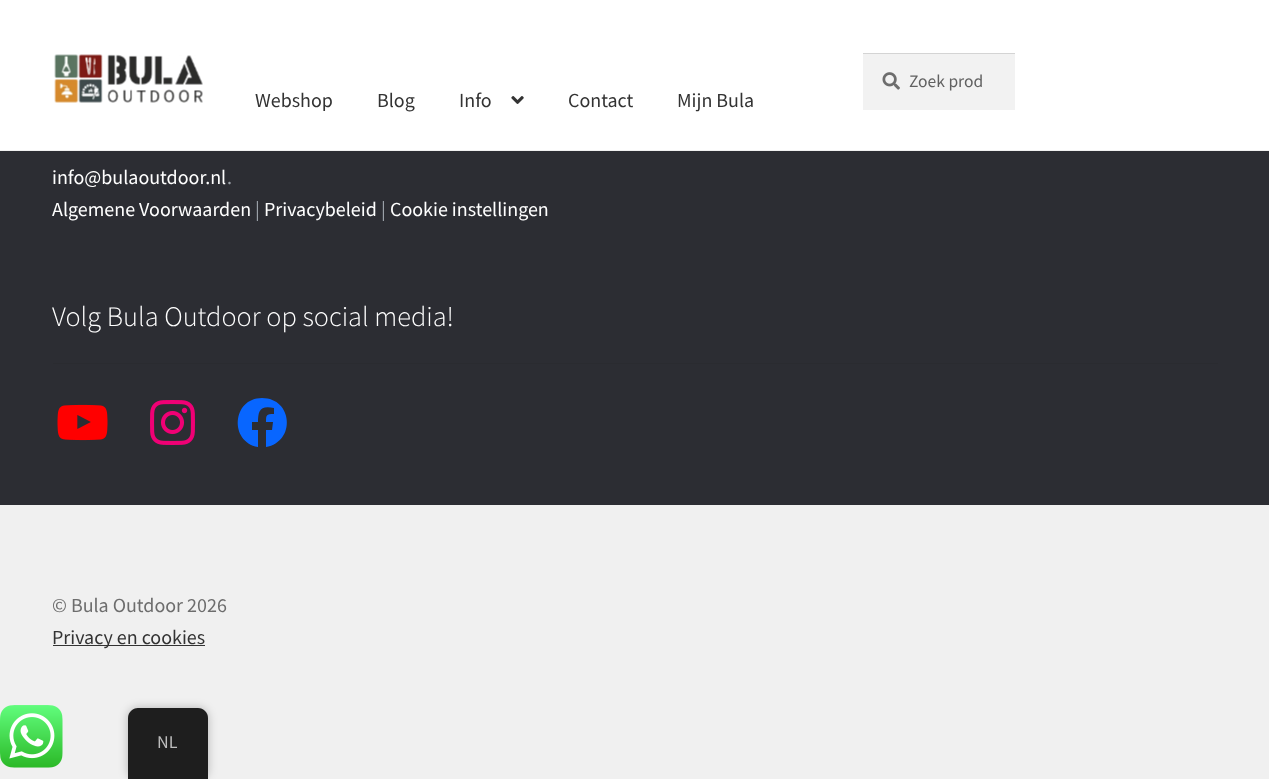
<!DOCTYPE html>
<meta charset="utf-8">
<style>body { margin: 0 } canvas { display: block }</style>
<canvas id="canvas" width="1269" height="779"></canvas>
<img id="img1" src="images/1.png" hidden>
<img id="img2" src="images/2.png" hidden>
<img id="img3" src="images/3.png" hidden>
<img id="img4" src="images/4.png" hidden>
<img id="img5" src="images/5.png" hidden>
<img id="img6" src="images/6.png" hidden>
<script>
window.onload = function () {
    const canvas = document.getElementById('canvas');
    const context = canvas.getContext('2d');
    context.miterLimit = 4;
    context.fontKerning = 'normal';

    context.fillStyle = 'rgb(44, 45, 51)';
    context.fillRect(0, 0, 1269, 779);
    context.fillStyle = 'rgb(255, 255, 255)';
    context.fillRect(0, 0, 1269, 150);
    context.fillStyle = 'rgb(240, 240, 240)';
    context.fillRect(0, 150, 1269, 1);
    context.drawImage(document.getElementById('img1'), 54, 54, 149, 49);
    context.fillStyle = 'rgb(242, 242, 242)';
    context.fillRect(863, 54, 152, 56);
    context.drawImage(document.getElementById('img2'), 882, 72, 18, 18);
    context.fillStyle = 'rgb(212, 212, 212)';
    context.fillRect(863, 53, 152, 1);
    context.drawImage(document.getElementById('img3'), 511, 96, 13, 8);
    context.fillStyle = 'rgb(42, 43, 48)';
    context.fillRect(53, 363, 1165, 1);
    context.drawImage(document.getElementById('img4'), 57, 404, 51, 37);
    context.drawImage(document.getElementById('img5'), 150, 400, 45, 45);
    context.fillStyle = 'rgb(8, 102, 255)';
    context.beginPath();
    context.moveTo(262, 398);
    context.bezierCurveTo(232, 398, 229, 442, 258, 447);
    context.lineTo(258, 430);
    context.lineTo(252, 430);
    context.lineTo(252, 422);
    context.lineTo(258, 422);
    context.bezierCurveTo(258, 411, 260, 405, 274, 408);
    context.lineTo(274, 414);
    context.bezierCurveTo(266, 414, 266, 415, 266, 422);
    context.lineTo(273, 422);
    context.lineTo(272, 430);
    context.lineTo(266, 430);
    context.lineTo(266, 447);
    context.bezierCurveTo(296, 442, 293, 398, 262, 398);
    context.closePath();
    context.fill();
    context.fillStyle = 'rgb(240, 240, 240)';
    context.fillRect(0, 505, 1269, 274);
    context.fillStyle = 'rgb(51, 51, 51)';
    context.fillRect(53, 645, 152, 1);
    context.drawImage(document.getElementById('img6'), 0, 705, 63, 63);
    context.fillStyle = 'rgba(0, 0, 0, 0.25)';
    context.filter = 'blur(5px)';
    context.beginPath();
    context.roundRect(128, 708, 80, 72, 10);
    context.fill();
    context.filter = 'none';
    context.fillStyle = 'rgb(30, 30, 30)';
    context.beginPath();
    context.moveTo(138, 708);
    context.lineTo(198, 708);
    context.bezierCurveTo(203.5, 708, 208, 712.5, 208, 718);
    context.lineTo(208, 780);
    context.lineTo(128, 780);
    context.lineTo(128, 718);
    context.bezierCurveTo(128, 712.5, 132.5, 708, 138, 708);
    context.closePath();
    context.fill();
    context.font = '17.5px Source Sans Pro';
    context.fillStyle = 'rgb(97, 97, 97)';
    context.fillText('Zoek prod', 909, 87);
    context.font = '20px Source Sans Pro';
    context.fillStyle = 'rgb(51, 51, 51)';
    context.fillText('Webshop', 255, 107);
    context.fillText('Blog', 377, 107);
    context.fillText('Info', 459, 107);
    context.fillText('Contact', 568, 107);
    context.fillText('Mijn Bula', 677, 107);
    context.fillStyle = 'rgb(255, 255, 255)';
    context.fillText('info@bulaoutdoor.nl', 52, 184);
    context.fillStyle = 'rgb(154, 160, 167)';
    context.fillText('.', 227, 184);
    context.fillStyle = 'rgb(255, 255, 255)';
    context.fillText('Algemene Voorwaarden', 52, 216);
    context.fillStyle = 'rgb(154, 160, 167)';
    context.fillText('|', 255, 216);
    context.fillStyle = 'rgb(255, 255, 255)';
    context.fillText('Privacybeleid', 264, 216);
    context.fillStyle = 'rgb(154, 160, 167)';
    context.fillText('|', 381, 216);
    context.fillStyle = 'rgb(255, 255, 255)';
    context.fillText('Cookie instellingen', 390, 216);
    context.font = '300 28.25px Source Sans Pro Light';
    context.fillText('Volg Bula Outdoor op social media!', 52, 326);
    context.font = '20px Source Sans Pro';
    context.fillStyle = 'rgb(109, 109, 109)';
    context.fillText('© Bula Outdoor 2026', 52, 612);
    context.fillStyle = 'rgb(51, 51, 51)';
    context.fillText('Privacy en cookies', 52, 644);
    context.font = '18px Source Sans Pro';
    context.fillStyle = 'rgb(189, 189, 189)';
    context.fillText('NL', 157, 748);
};
</script>
